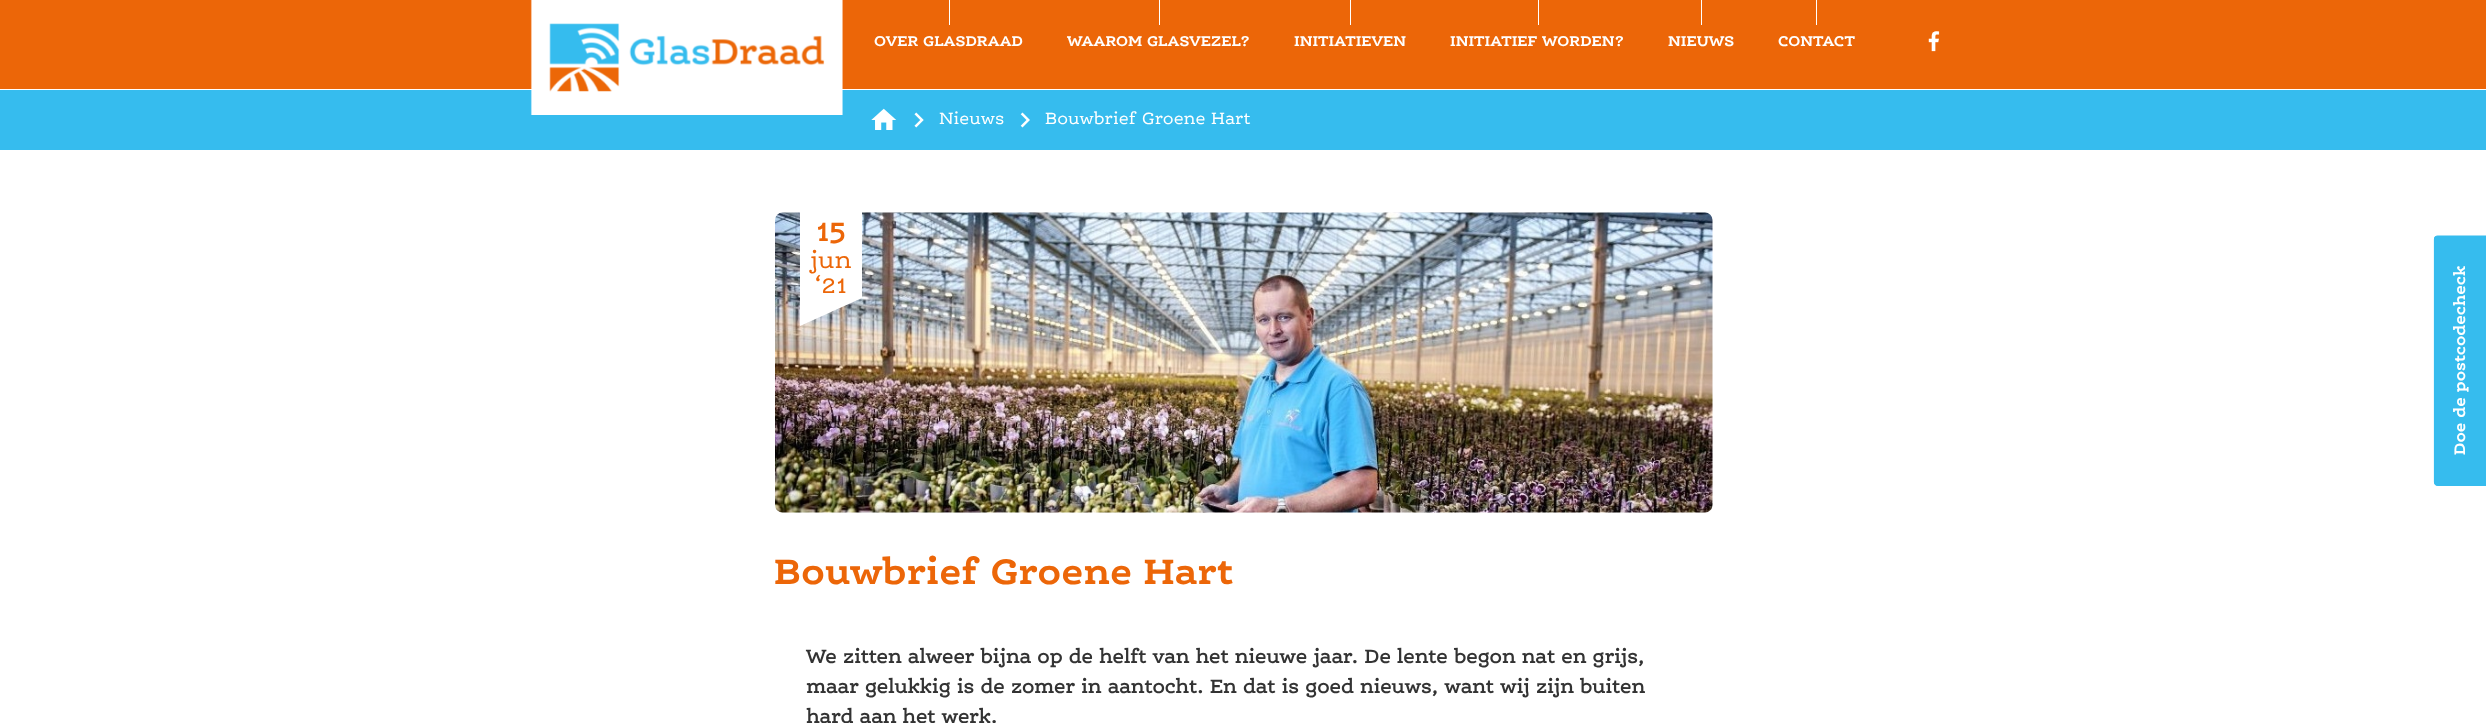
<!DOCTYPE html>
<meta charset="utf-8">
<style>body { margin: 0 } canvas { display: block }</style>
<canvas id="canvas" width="2486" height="723"></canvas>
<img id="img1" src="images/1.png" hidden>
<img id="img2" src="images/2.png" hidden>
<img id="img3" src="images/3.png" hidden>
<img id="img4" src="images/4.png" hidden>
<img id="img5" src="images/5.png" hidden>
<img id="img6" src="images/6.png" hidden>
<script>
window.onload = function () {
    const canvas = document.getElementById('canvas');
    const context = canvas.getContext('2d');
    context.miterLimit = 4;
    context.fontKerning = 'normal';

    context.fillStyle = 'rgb(255, 255, 255)';
    context.fillRect(0, 0, 2486, 723);
    context.fillStyle = 'rgb(236, 102, 8)';
    context.fillRect(0, 0, 2486, 89);
    context.fillStyle = 'rgb(54, 188, 238)';
    context.fillRect(0, 90, 2486, 60);
    context.drawImage(document.getElementById('img1'), 530, 0, 313, 115);
    context.fillStyle = 'rgb(255, 255, 255)';
    context.fillRect(949, 0, 1, 25);
    context.fillRect(1159, 0, 1, 25);
    context.fillRect(1350, 0, 1, 25);
    context.fillRect(1538, 0, 1, 25);
    context.fillRect(1701, 0, 1, 25);
    context.fillRect(1816, 0, 1, 25);
    context.drawImage(document.getElementById('img2'), 1928, 31, 12, 21);
    context.drawImage(document.getElementById('img3'), 871, 108, 26, 22);
    context.drawImage(document.getElementById('img4'), 914, 112, 10, 16);
    context.drawImage(document.getElementById('img5'), 1020, 112, 10, 16);
    context.drawImage(document.getElementById('img6'), 775, 212, 938, 301);
    context.beginPath();
    context.moveTo(800, 326);
    context.lineTo(800, 211);
    context.lineTo(862, 211);
    context.lineTo(862, 298);
    context.closePath();
    context.fill();
    context.fillStyle = 'rgb(54, 188, 238)';
    context.beginPath();
    context.moveTo(2434, 482);
    context.lineTo(2434, 239);
    context.bezierCurveTo(2434, 237, 2435, 236, 2438, 236);
    context.lineTo(2486, 236);
    context.lineTo(2486, 486);
    context.lineTo(2438, 486);
    context.bezierCurveTo(2435, 486, 2434, 484, 2434, 482);
    context.closePath();
    context.fill();
    context.beginPath();
    context.moveTo(2434.5, 482);
    context.lineTo(2434.5, 239.5);
    context.bezierCurveTo(2434.5, 237.5, 2436, 236, 2437.5, 236);
    context.lineTo(2485.5, 236);
    context.lineTo(2485.5, 485);
    context.lineTo(2437.5, 485);
    context.bezierCurveTo(2436, 485, 2434.5, 483.5, 2434.5, 482);
    context.closePath();
    context.strokeStyle = 'rgb(54, 188, 238)';
    context.lineWidth = 1.2;
    context.stroke();
    context.font = 'bold 15px "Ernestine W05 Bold"';
    context.fillStyle = 'rgb(255, 255, 255)';
    context.fillText('OVER GLASDRAAD', 874, 46);
    context.fillText('WAAROM GLASVEZEL?', 1067, 46);
    context.fillText('INITIATIEVEN', 1294, 46);
    context.fillText('INITIATIEF WORDEN?', 1450, 46);
    context.fillText('NIEUWS', 1668, 46);
    context.fillText('CONTACT', 1778, 46);
    context.font = '17.5px "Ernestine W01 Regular"';
    context.fillText('Nieuws', 939, 124);
    context.fillText('Bouwbrief Groene Hart', 1045, 124);
    context.font = 'bold 30px "Ernestine W01 Regular"';
    context.fillStyle = 'rgb(236, 102, 8)';
    context.fillText('15', 816, 241);
    context.font = '25px "Ernestine W01 Regular"';
    context.fillText('jun', 810, 268);
    context.fillText('‘21', 815, 293);
    context.font = 'bold 37.5px "Ernestine W05 Bold"';
    context.fillText('Bouwbrief Groene Hart', 774, 584);
    context.font = 'bold 20px "Ernestine W01 Regular"';
    context.fillStyle = 'rgb(51, 51, 51)';
    context.fillText('We zitten alweer bijna op de helft van het nieuwe jaar. De lente begon nat en grijs,', 806, 663);
    context.fillText('maar gelukkig is de zomer in aantocht. En dat is goed nieuws, want wij zijn buiten', 806, 693);
    context.fillText('hard aan het werk.', 806, 723);
    context.font = 'bold 16.25px "Ernestine W05 Bold"';
    context.fillStyle = 'rgb(255, 255, 255)';
    context.save();
    context.translate(2465, 455);
    context.rotate(-90 * Math.PI / 180);
    context.fillText('Doe de postcodecheck', 0, 0);
    context.restore();
};
</script>
